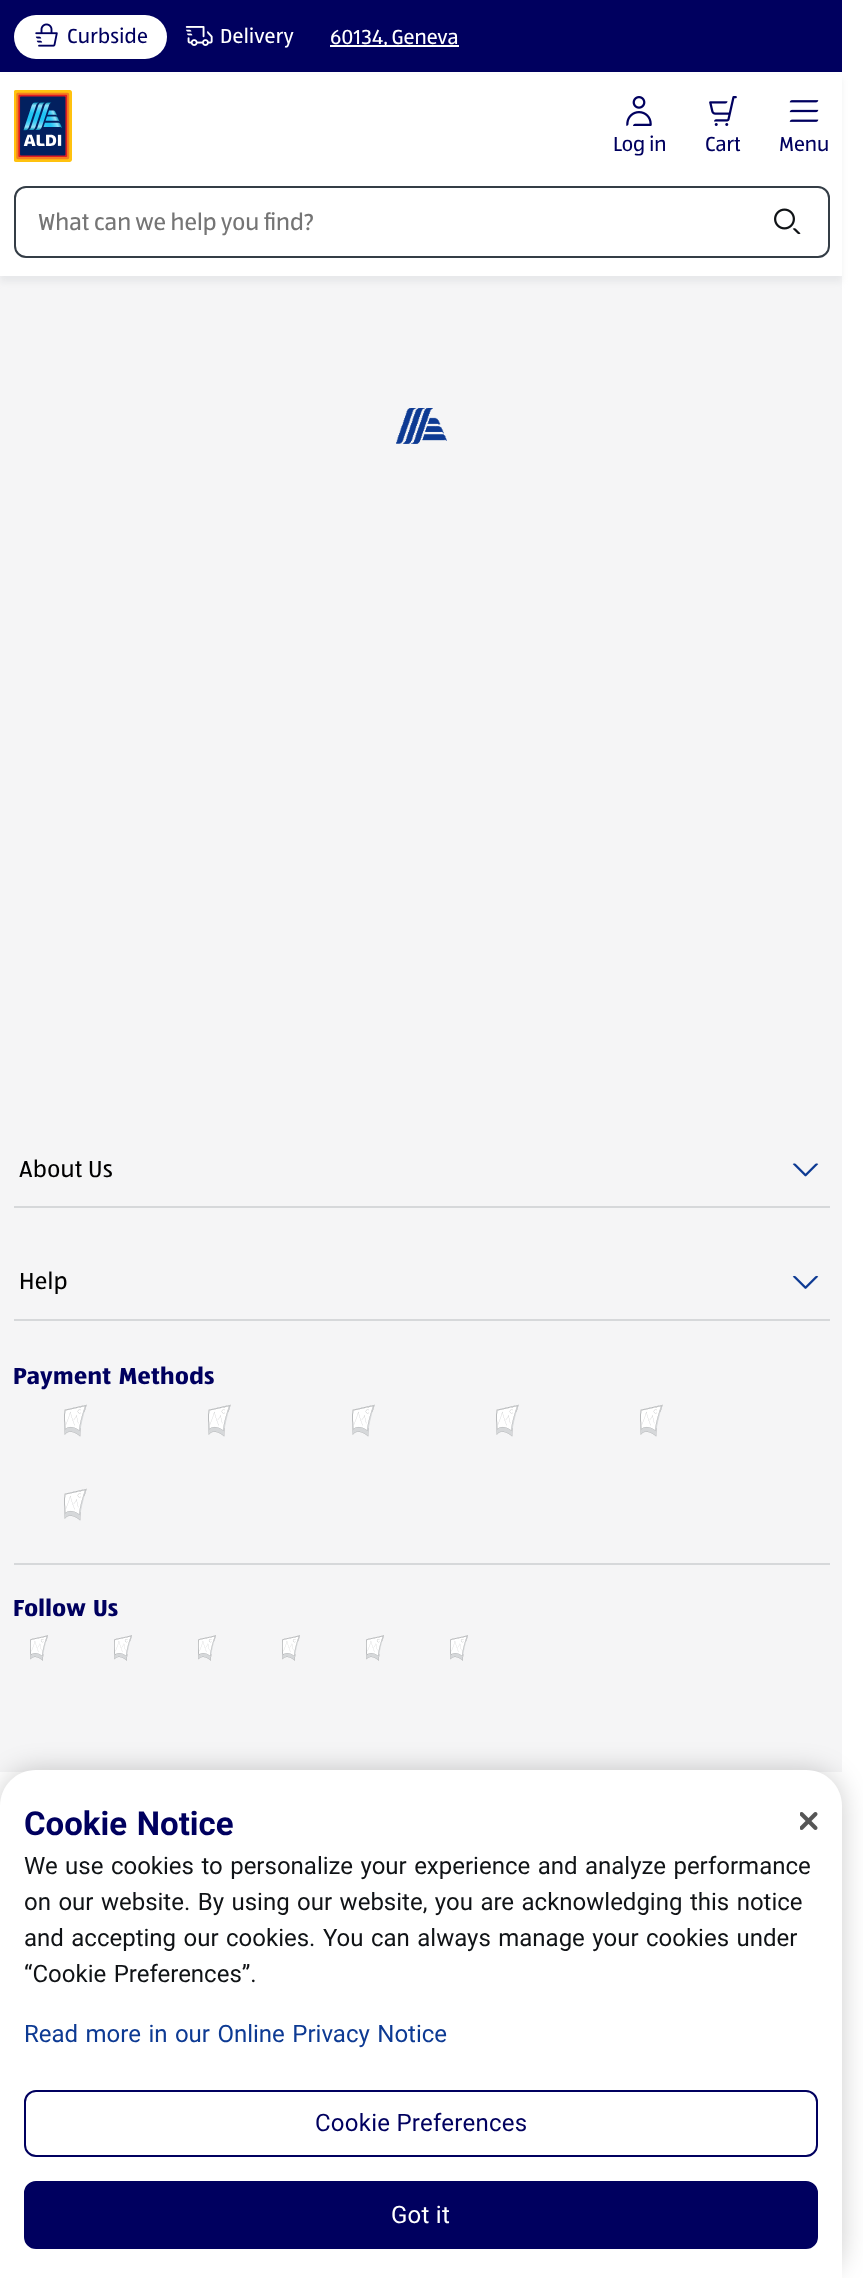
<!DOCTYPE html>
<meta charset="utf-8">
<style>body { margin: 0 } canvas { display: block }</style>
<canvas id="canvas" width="863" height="2278"></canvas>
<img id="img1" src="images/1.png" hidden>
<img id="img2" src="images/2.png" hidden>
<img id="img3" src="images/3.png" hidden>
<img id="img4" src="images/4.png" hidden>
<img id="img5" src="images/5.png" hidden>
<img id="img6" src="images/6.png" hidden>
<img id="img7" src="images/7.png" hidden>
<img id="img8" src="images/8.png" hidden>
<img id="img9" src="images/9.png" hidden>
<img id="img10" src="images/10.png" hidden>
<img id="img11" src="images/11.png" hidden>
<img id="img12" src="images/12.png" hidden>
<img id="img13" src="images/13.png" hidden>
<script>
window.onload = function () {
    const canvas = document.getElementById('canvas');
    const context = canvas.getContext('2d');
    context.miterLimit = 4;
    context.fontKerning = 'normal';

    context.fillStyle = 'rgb(255, 255, 255)';
    context.fillRect(0, 0, 863, 2278);
    context.fillStyle = 'rgb(245, 245, 246)';
    context.fillRect(0, 276, 842, 1496);
    context.fillStyle = 'rgba(193, 196, 199, 0.25)';
    context.filter = 'blur(3px)';
    context.beginPath();
    context.rect(0, 78, 842, 204);
    context.fill();
    context.filter = 'none';
    context.fillStyle = 'rgb(0, 0, 95)';
    context.fillRect(0, 0, 842, 72);
    context.fillStyle = 'rgb(255, 255, 255)';
    context.beginPath();
    context.roundRect(14, 15, 153, 44, 22);
    context.fill();
    context.drawImage(document.getElementById('img1'), 35, 23, 23, 24);
    context.drawImage(document.getElementById('img2'), 185, 26, 28, 20);
    context.fillRect(330, 45, 129, 2);
    context.fillRect(0, 75, 842, 201);
    context.drawImage(document.getElementById('img3'), 14, 90, 58, 72);
    context.drawImage(document.getElementById('img4'), 626, 96, 26, 30);
    context.drawImage(document.getElementById('img5'), 709, 96, 28, 30);
    context.drawImage(document.getElementById('img6'), 789, 100, 30, 22);
    context.beginPath();
    context.roundRect(15, 187, 814, 70, 11);
    context.strokeStyle = 'rgb(52, 61, 70)';
    context.lineWidth = 2;
    context.stroke();
    context.drawImage(document.getElementById('img7'), 774, 208, 27, 27);
    context.drawImage(document.getElementById('img8'), 396, 408, 51, 36);
    context.fillStyle = 'rgb(214, 216, 218)';
    context.fillRect(14, 1206, 816, 2);
    context.drawImage(document.getElementById('img9'), 792, 1163, 27, 14);
    context.fillRect(14, 1319, 816, 2);
    context.drawImage(document.getElementById('img10'), 792, 1275, 27, 14);
    context.fillRect(14, 1563, 816, 2);
    context.drawImage(document.getElementById('img11'), 64, 1404, 23, 33);
    context.drawImage(document.getElementById('img11'), 208, 1404, 23, 33);
    context.drawImage(document.getElementById('img11'), 352, 1404, 23, 33);
    context.drawImage(document.getElementById('img11'), 496, 1404, 23, 33);
    context.drawImage(document.getElementById('img11'), 640, 1404, 23, 33);
    context.drawImage(document.getElementById('img11'), 64, 1488, 23, 33);
    context.drawImage(document.getElementById('img12'), 30, 1635, 18, 26);
    context.drawImage(document.getElementById('img12'), 114, 1635, 18, 26);
    context.drawImage(document.getElementById('img12'), 198, 1635, 18, 26);
    context.drawImage(document.getElementById('img12'), 282, 1635, 18, 26);
    context.drawImage(document.getElementById('img12'), 366, 1635, 18, 26);
    context.drawImage(document.getElementById('img12'), 450, 1635, 18, 26);
    context.fillStyle = 'rgba(0, 0, 0, 0.2)';
    context.filter = 'blur(13.5px)';
    context.beginPath();
    context.roundRect(0, 1770, 842, 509, 36);
    context.fill();
    context.filter = 'none';
    context.fillStyle = 'rgb(255, 255, 255)';
    context.beginPath();
    context.moveTo(36, 1770);
    context.lineTo(806, 1770);
    context.bezierCurveTo(826, 1770, 842, 1786, 842, 1806);
    context.lineTo(842, 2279);
    context.lineTo(0, 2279);
    context.lineTo(0, 1806);
    context.bezierCurveTo(0, 1786, 16, 1770, 36, 1770);
    context.closePath();
    context.fill();
    context.beginPath();
    context.roundRect(25, 2091, 792, 65, 11);
    context.strokeStyle = 'rgb(0, 0, 95)';
    context.stroke();
    context.fillStyle = 'rgb(0, 0, 95)';
    context.beginPath();
    context.roundRect(25, 2182, 792, 66, 11);
    context.fill();
    context.stroke();
    context.drawImage(document.getElementById('img13'), 800, 1812, 18, 18);
    context.letterSpacing = '0.25px';
    context.font = '21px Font';
    context.fillText('Curbside', 67, 43);
    context.fillStyle = 'rgb(255, 255, 255)';
    context.fillText('Delivery', 220, 43);
    context.letterSpacing = '0px';
    context.fillText('60134, Geneva', 330, 44);
    context.fillStyle = 'rgb(0, 0, 95)';
    context.fillText('Log in', 613, 151);
    context.fillText('Cart', 705, 151);
    context.fillText('Menu', 779, 151);
    context.font = '24px Font';
    context.fillStyle = 'rgb(117, 117, 117)';
    context.fillText('What can we help you find?', 38, 230);
    context.letterSpacing = '0.4px';
    context.fillStyle = 'rgb(0, 0, 0)';
    context.fillText('About Us', 19, 1177);
    context.fillText('Help', 19, 1289);
    context.wordSpacing = '1.5px';
    context.font = 'bold 24px Font';
    context.fillStyle = 'rgb(0, 0, 95)';
    context.fillText('Payment Methods', 13, 1384);
    context.fillText('Follow Us', 13, 1616);
    context.letterSpacing = '0px';
    context.font = 'bold 33px Roboto';
    context.fillText('Cookie Notice', 24, 1835);
    context.font = '24px Roboto';
    context.fillStyle = 'rgb(16, 19, 22)';
    context.fillText('We use cookies to personalize your experience and analyze performance', 24, 1874);
    context.fillText('on our website. By using our website, you are acknowledging this notice', 24, 1910);
    context.fillText('and accepting our cookies. You can always manage your cookies under', 24, 1946);
    context.fillText('“Cookie Preferences”.', 24, 1982);
    context.fillStyle = 'rgb(13, 58, 147)';
    context.fillText('Read more in our Online Privacy Notice', 24, 2042);
    context.letterSpacing = '0.25px';
    context.wordSpacing = '0px';
    context.fillStyle = 'rgb(0, 0, 95)';
    context.fillText('Cookie Preferences', 315, 2131);
    context.fillStyle = 'rgb(255, 255, 255)';
    context.fillText('Got it', 391, 2223);
};
</script>
